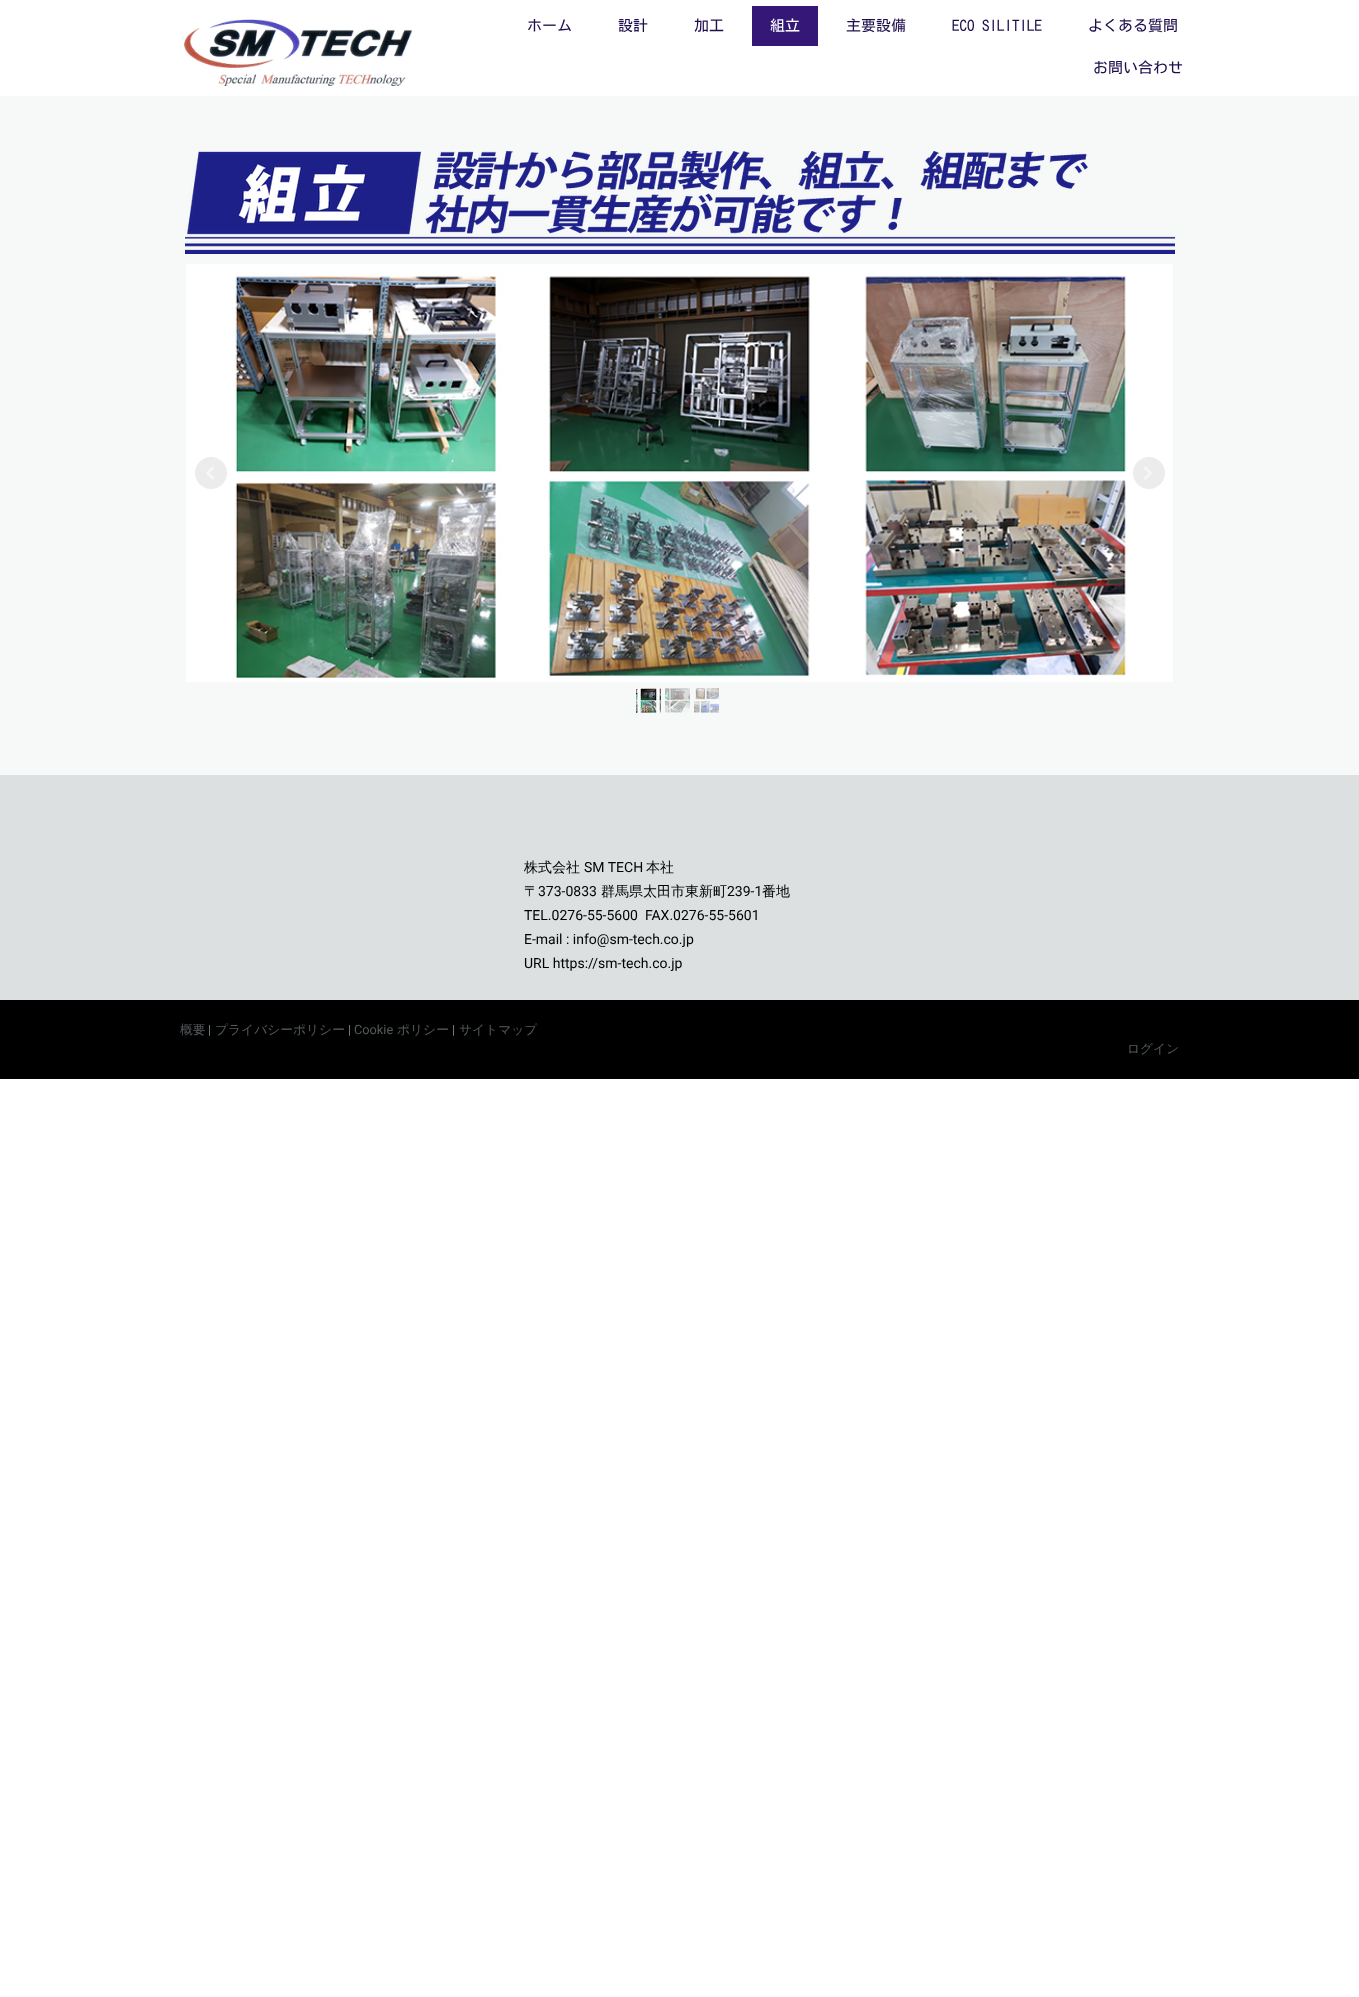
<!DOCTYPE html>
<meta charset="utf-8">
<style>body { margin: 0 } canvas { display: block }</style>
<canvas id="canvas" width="1359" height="1997"></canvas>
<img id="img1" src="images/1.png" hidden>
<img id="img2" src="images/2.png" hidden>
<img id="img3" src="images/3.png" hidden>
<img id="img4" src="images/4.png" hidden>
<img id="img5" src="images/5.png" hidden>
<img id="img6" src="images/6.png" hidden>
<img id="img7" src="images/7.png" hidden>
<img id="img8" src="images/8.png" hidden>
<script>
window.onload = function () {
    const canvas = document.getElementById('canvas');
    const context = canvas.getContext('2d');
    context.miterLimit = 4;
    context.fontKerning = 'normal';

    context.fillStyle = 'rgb(255, 255, 255)';
    context.fillRect(0, 0, 1359, 1997);
    context.drawImage(document.getElementById('img1'), 184, 19, 229, 67);
    context.fillStyle = 'rgb(53, 23, 119)';
    context.fillRect(752, 6, 66, 40);
    context.fillStyle = 'rgb(247, 248, 248)';
    context.fillRect(0, 96, 1359, 679);
    context.drawImage(document.getElementById('img2'), 185, 151, 990, 103);
    context.drawImage(document.getElementById('img3'), 186, 264, 987, 418);
    context.fillStyle = 'rgb(236, 236, 236)';
    context.beginPath();
    context.arc(211, 473, 16, 0, 2 * Math.PI);
    context.fill();
    context.drawImage(document.getElementById('img4'), 206, 466, 8, 14);
    context.beginPath();
    context.arc(1149, 473, 16, 0, 2 * Math.PI);
    context.fill();
    context.drawImage(document.getElementById('img5'), 1144, 466, 8, 14);
    context.drawImage(document.getElementById('img6'), 636, 688, 25, 25);
    context.drawImage(document.getElementById('img7'), 665, 688, 25, 25);
    context.drawImage(document.getElementById('img8'), 694, 688, 25, 25);
    context.fillStyle = 'rgb(220, 224, 224)';
    context.fillRect(0, 775, 1359, 225);
    context.fillStyle = 'rgb(0, 0, 0)';
    context.fillRect(0, 1000, 1359, 79);
    context.font = '15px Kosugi';
    context.fillStyle = 'rgb(32, 15, 78)';
    context.fillText('ホーム', 527, 31);
    context.fillText('設計', 618, 31);
    context.fillText('加工', 694, 31);
    context.fillStyle = 'rgb(255, 255, 255)';
    context.fillText('組立', 770, 31);
    context.fillStyle = 'rgb(32, 15, 78)';
    context.fillText('主要設備', 846, 31);
    context.fillText('ECO SILITILE', 952, 31);
    context.fillText('よくある質問', 1088, 31);
    context.fillText('お問い合わせ', 1093, 73);
    context.font = '500 14px WenQuanYi Zen Hei';
    context.fillStyle = 'rgb(0, 0, 0)';
    context.fillText('株式会社', 524, 872);
    context.font = '14px Roboto';
    context.fillText('SM TECH', 584, 872);
    context.font = '500 14px WenQuanYi Zen Hei';
    context.fillText('本社', 646, 872);
    context.fillText('〒', 524, 896);
    context.font = '14px Roboto';
    context.fillText('373-0833', 538, 896);
    context.font = '500 14px WenQuanYi Zen Hei';
    context.fillText('群馬県太田市東新町', 601, 896);
    context.font = '14px Roboto';
    context.fillText('239-1', 727, 896);
    context.font = '500 14px WenQuanYi Zen Hei';
    context.fillText('番地', 762, 896);
    context.font = '14px Roboto';
    context.fillText('TEL.0276-55-5600  FAX.0276-55-5601', 524, 920);
    context.fillText('E-mail : info@sm-tech.co.jp', 524, 944);
    context.fillText('URL https://sm-tech.co.jp', 524, 968);
    context.font = '500 12.75px WenQuanYi Zen Hei';
    context.fillStyle = 'rgb(85, 92, 94)';
    context.fillText('概要', 180, 1034);
    context.font = '12.75px Roboto';
    context.fillStyle = 'rgb(121, 132, 134)';
    context.fillText('|', 208, 1034);
    context.font = '500 12.75px WenQuanYi Zen Hei';
    context.fillStyle = 'rgb(85, 92, 94)';
    context.fillText('プライバシーポリシー', 215, 1034);
    context.font = '12.75px Roboto';
    context.fillStyle = 'rgb(121, 132, 134)';
    context.fillText('|', 348, 1034);
    context.fillStyle = 'rgb(85, 92, 94)';
    context.fillText('Cookie', 354, 1034);
    context.font = '500 12.75px WenQuanYi Zen Hei';
    context.fillText('ポリシー', 397, 1034);
    context.font = '12.75px Roboto';
    context.fillStyle = 'rgb(121, 132, 134)';
    context.fillText('|', 452, 1034);
    context.font = '500 12.75px WenQuanYi Zen Hei';
    context.fillStyle = 'rgb(85, 92, 94)';
    context.fillText('サイトマップ', 459, 1034);
    context.fillText('ログイン', 1127, 1053);
};
</script>
